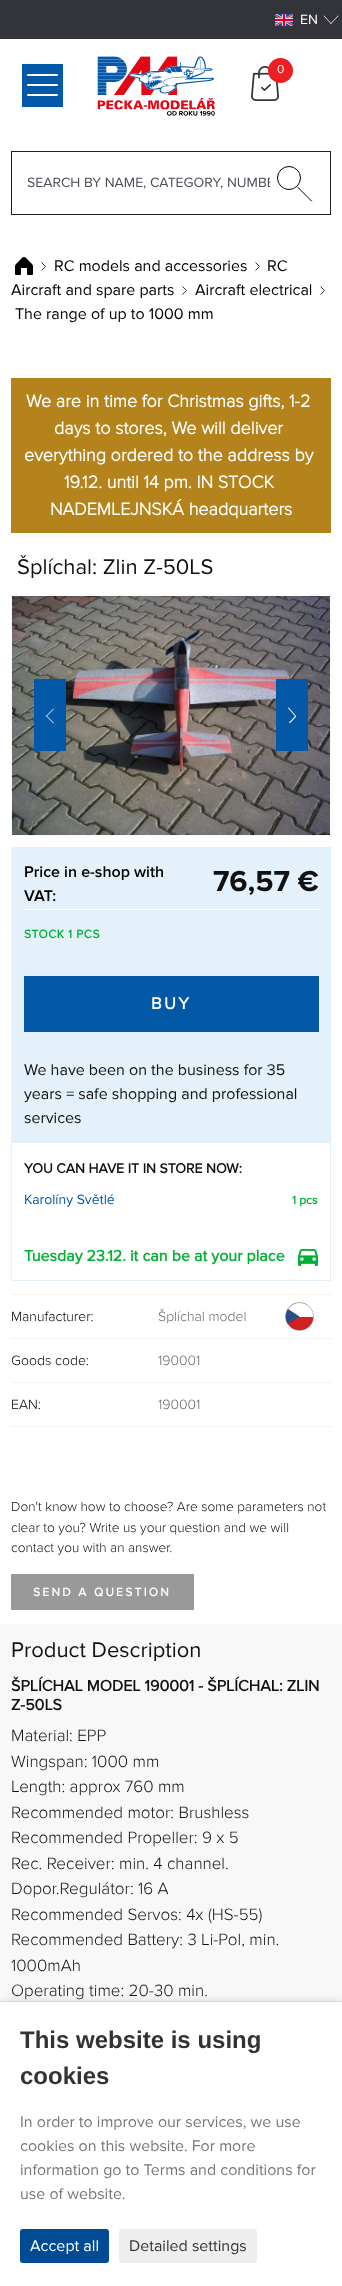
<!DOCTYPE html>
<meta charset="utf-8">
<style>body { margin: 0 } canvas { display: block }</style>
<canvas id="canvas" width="342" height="2286"></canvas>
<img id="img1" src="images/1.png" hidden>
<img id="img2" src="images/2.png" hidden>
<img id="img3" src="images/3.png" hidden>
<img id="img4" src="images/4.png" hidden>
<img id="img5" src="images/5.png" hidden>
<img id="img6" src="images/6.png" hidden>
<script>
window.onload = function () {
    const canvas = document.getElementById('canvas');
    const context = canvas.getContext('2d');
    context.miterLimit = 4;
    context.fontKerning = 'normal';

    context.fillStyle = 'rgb(255, 255, 255)';
    context.fillRect(0, 0, 342, 2286);
    context.fillStyle = 'rgb(51, 51, 58)';
    context.fillRect(0, 0, 342, 39);
    context.drawImage(document.getElementById('img1'), 275, 14, 18, 12);
    context.beginPath();
    context.moveTo(324, 16);
    context.lineTo(331, 23.5);
    context.moveTo(338, 16);
    context.lineTo(331, 23.5);
    context.strokeStyle = 'rgb(255, 255, 255)';
    context.lineWidth = 0.8;
    context.lineCap = 'round';
    context.lineJoin = 'round';
    context.stroke();
    context.fillStyle = 'rgb(3, 88, 167)';
    context.fillRect(22, 64, 41, 43);
    context.fillStyle = 'rgb(255, 255, 255)';
    context.beginPath();
    context.roundRect(27, 74, 31, 2, 1);
    context.fill();
    context.beginPath();
    context.roundRect(27, 84, 31, 2, 1);
    context.fill();
    context.beginPath();
    context.roundRect(27, 94, 31, 2, 1);
    context.fill();
    context.drawImage(document.getElementById('img2'), 97, 56, 118, 60);
    context.drawImage(document.getElementById('img3'), 251, 66, 28, 35);
    context.fillStyle = 'rgb(237, 30, 36)';
    context.beginPath();
    context.arc(280.5, 70.5, 12.5, 0, 2 * Math.PI);
    context.fill();
    context.strokeStyle = 'rgb(30, 30, 30)';
    context.lineWidth = 1;
    context.lineJoin = 'miter';
    context.strokeRect(11.5, 151.5, 319, 63);
    context.beginPath();
    context.arc(289, 178, 11.5, 0, 2 * Math.PI);
    context.strokeStyle = 'rgb(0, 0, 0)';
    context.stroke();
    context.beginPath();
    context.moveTo(298, 187.5);
    context.lineTo(311.5, 201);
    context.lineCap = 'square';
    context.stroke();
    context.drawImage(document.getElementById('img4'), 15, 257, 18, 18);
    context.beginPath();
    context.moveTo(41.5, 270.5);
    context.lineTo(45.5, 266.5);
    context.lineTo(41.5, 262.5);
    context.lineWidth = 0.8;
    context.lineCap = 'butt';
    context.stroke();
    context.beginPath();
    context.moveTo(255.5, 270.5);
    context.lineTo(259.5, 266.5);
    context.lineTo(255.5, 262.5);
    context.stroke();
    context.beginPath();
    context.moveTo(182.5, 294.5);
    context.lineTo(186.5, 290.5);
    context.lineTo(182.5, 286.5);
    context.stroke();
    context.beginPath();
    context.moveTo(320.5, 294.5);
    context.lineTo(324.5, 290.5);
    context.lineTo(320.5, 286.5);
    context.stroke();
    context.fillStyle = 'rgb(181, 131, 28)';
    context.fillRect(11, 378, 320, 155);
    context.strokeStyle = 'rgb(248, 248, 248)';
    context.lineWidth = 1;
    context.strokeRect(11.5, 594.5, 319, 241);
    context.drawImage(document.getElementById('img5'), 12, 596, 318, 239);
    context.fillStyle = 'rgb(3, 88, 167)';
    context.fillRect(34, 679, 32, 72);
    context.beginPath();
    context.moveTo(53.5, 709);
    context.lineTo(46.5, 716);
    context.moveTo(53.5, 723);
    context.lineTo(46.5, 716);
    context.strokeStyle = 'rgb(243, 243, 243)';
    context.lineCap = 'round';
    context.lineJoin = 'round';
    context.stroke();
    context.fillRect(276, 679, 32, 72);
    context.save();
    context.beginPath();
    context.rect(288, 707, 8, 16);
    context.clip();
    context.beginPath();
    context.moveTo(288.5, 724);
    context.lineTo(295.5, 716.5);
    context.lineWidth = 1.1;
    context.stroke();
    context.restore();
    context.beginPath();
    context.moveTo(288.5, 708);
    context.lineTo(295.5, 716);
    context.lineWidth = 1.1;
    context.stroke();
    context.fillStyle = 'rgb(228, 240, 250)';
    context.fillRect(11, 847, 320, 296);
    context.fillStyle = 'rgb(255, 255, 255)';
    context.fillRect(23, 909, 298, 1);
    context.fillStyle = 'rgb(3, 88, 167)';
    context.fillRect(24, 976, 295, 56);
    context.fillStyle = 'rgb(228, 240, 250)';
    context.fillRect(330, 1143, 1, 138);
    context.fillRect(11, 1280, 320, 1);
    context.fillRect(11, 1143, 1, 138);
    context.drawImage(document.getElementById('img6'), 298, 1249, 20, 17);
    context.fillStyle = 'rgb(243, 243, 243)';
    context.fillRect(11, 1294, 321, 1);
    context.beginPath();
    context.arc(299.5, 1316.5, 13.5, 0, 2 * Math.PI);
    context.strokeStyle = 'rgb(151, 151, 151)';
    context.lineWidth = 1.5;
    context.stroke();
    context.fillStyle = 'rgb(255, 255, 255)';
    context.beginPath();
    context.moveTo(299.5, 1303);
    context.bezierCurveTo(306, 1303, 312, 1307.5, 313, 1314);
    context.lineTo(313, 1317);
    context.lineTo(286, 1317);
    context.bezierCurveTo(285.5, 1309.5, 292, 1303, 299.5, 1303);
    context.closePath();
    context.fill();
    context.fillStyle = 'rgb(209, 34, 31)';
    context.beginPath();
    context.moveTo(313, 1319);
    context.bezierCurveTo(310, 1335, 286.5, 1333, 286, 1317);
    context.lineTo(313, 1317);
    context.closePath();
    context.fill();
    context.fillStyle = 'rgb(44, 76, 134)';
    context.beginPath();
    context.moveTo(299.5, 1316.5);
    context.lineTo(288, 1324);
    context.bezierCurveTo(285, 1319.5, 285, 1313.5, 288, 1309);
    context.closePath();
    context.fill();
    context.fillStyle = 'rgb(243, 243, 243)';
    context.fillRect(11, 1338, 321, 1);
    context.fillRect(11, 1382, 321, 1);
    context.fillRect(11, 1426, 321, 1);
    context.fillStyle = 'rgb(153, 153, 153)';
    context.fillRect(11, 1574, 183, 36);
    context.fillStyle = 'rgb(248, 248, 248)';
    context.fillRect(0, 1624, 342, 377);
    context.fillStyle = 'rgba(0, 0, 0, 0.2)';
    context.filter = 'blur(5px)';
    context.beginPath();
    context.rect(0, 2003, 342, 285);
    context.fill();
    context.filter = 'none';
    context.fillStyle = 'rgb(255, 255, 255)';
    context.fillRect(0, 2002, 342, 284);
    context.fillStyle = 'rgb(217, 217, 217)';
    context.fillRect(0, 2001, 342, 1);
    context.fillStyle = 'rgb(0, 75, 147)';
    context.beginPath();
    context.roundRect(20, 2229, 89, 34, 3);
    context.fill();
    context.fillStyle = 'rgb(238, 238, 238)';
    context.beginPath();
    context.roundRect(119, 2229, 138, 34, 3);
    context.fill();
    context.font = '14px Proxima Nova';
    context.fillStyle = 'rgb(255, 255, 255)';
    context.fillText('EN', 300, 24);
    context.font = '12px Proxima Nova';
    context.fillText('0', 277, 73);
    context.save();
    context.beginPath();
    context.rect(27, 174, 243, 17);
    context.clip();
    context.font = '14px Proxima Nova';
    context.fillStyle = 'rgb(72, 77, 86)';
    context.fillText('SEARCH BY NAME, CATEGORY, NUMBE', 27, 187);
    context.restore();
    context.font = '16px Proxima Nova';
    context.fillStyle = 'rgb(0, 0, 0)';
    context.fillText('RC models and accessories', 54, 271);
    context.fillText('RC', 267, 271);
    context.fillText('Aircraft and spare parts', 11, 295);
    context.fillText('Aircraft electrical', 195, 295);
    context.fillText('The range of up to 1000 mm', 15, 319);
    context.font = 'bold 18px Proxima Nova';
    context.fillStyle = 'rgb(255, 255, 255)';
    context.fillText('We are in time for Christmas gifts, 1-2', 26, 407);
    context.fillText('days to stores, We will deliver', 54, 434);
    context.fillText('everything ordered to the address by', 24, 461);
    context.fillText('19.12. until 14 pm. IN STOCK', 64, 488);
    context.fillText('NADEMLEJNSKÁ headquarters', 50, 515);
    context.font = '22px Proxima Nova';
    context.fillStyle = 'rgb(17, 17, 17)';
    context.fillText('Šplíchal: Zlin Z-50LS', 17, 574);
    context.font = '600 16px Proxima Nova';
    context.fillStyle = 'rgb(0, 0, 0)';
    context.fillText('Price in e-shop with', 24, 877);
    context.fillText('VAT:', 24, 901);
    context.font = 'bold 30px "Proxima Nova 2"';
    context.fillStyle = 'rgb(17, 17, 17)';
    context.fillText('76,57 €', 213, 891);
    context.letterSpacing = '0.5px';
    context.font = 'bold 12px "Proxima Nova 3"';
    context.fillStyle = 'rgb(0, 177, 50)';
    context.fillText('STOCK 1 PCS', 24, 938);
    context.letterSpacing = '2.3px';
    context.font = 'bold 17px "Proxima Nova 3"';
    context.fillStyle = 'rgb(255, 255, 255)';
    context.fillText('BUY', 151, 1009);
    context.letterSpacing = '0px';
    context.font = '16px Proxima Nova';
    context.fillStyle = 'rgb(17, 17, 17)';
    context.fillText('We have been on the business for 35', 24, 1075);
    context.fillText('years = safe shopping and professional', 24, 1099);
    context.fillText('services', 24, 1123);
    context.font = 'bold 14px "Proxima Nova 3"';
    context.fillText('YOU CAN HAVE IT IN STORE NOW:', 24, 1173);
    context.font = '14px Proxima Nova';
    context.fillStyle = 'rgb(3, 88, 167)';
    context.fillText('Karolíny Světlé', 24, 1204);
    context.font = 'bold 12px "Proxima Nova 3"';
    context.fillStyle = 'rgb(0, 177, 50)';
    context.fillText('1 pcs', 292, 1204);
    context.font = 'bold 16px "Proxima Nova 3"';
    context.fillText('Tuesday 23.12. it can be at your place', 24, 1261);
    context.font = '300 14px Proxima Nova';
    context.fillStyle = 'rgb(0, 0, 0)';
    context.fillText('Manufacturer:', 11, 1321);
    context.fillStyle = 'rgb(104, 104, 104)';
    context.fillText('Šplíchal model', 158, 1321);
    context.fillStyle = 'rgb(0, 0, 0)';
    context.fillText('Goods code:', 11, 1365);
    context.fillStyle = 'rgb(104, 104, 104)';
    context.fillText('190001', 158, 1365);
    context.fillStyle = 'rgb(0, 0, 0)';
    context.fillText('EAN:', 11, 1409);
    context.fillStyle = 'rgb(104, 104, 104)';
    context.fillText('190001', 158, 1409);
    context.font = '300 13.6px Proxima Nova';
    context.fillStyle = 'rgb(17, 17, 17)';
    context.fillText('Don\'t know how to choose? Are some parameters not', 11, 1511);
    context.fillText('clear to you? Write us your question and we will', 11, 1532);
    context.fillText('contact you with an answer.', 11, 1552);
    context.letterSpacing = '2.3px';
    context.font = 'bold 12px "Proxima Nova 3"';
    context.fillStyle = 'rgb(255, 255, 255)';
    context.fillText('SEND A QUESTION', 33, 1596);
    context.letterSpacing = '0px';
    context.font = '22px Proxima Nova';
    context.fillStyle = 'rgb(17, 17, 17)';
    context.fillText('Product Description', 11, 1657);
    context.font = 'bold 16px "Proxima Nova 3"';
    context.fillText('ŠPLÍCHAL MODEL 190001 - ŠPLÍCHAL: ZLIN', 11, 1691);
    context.fillText('Z-50LS', 11, 1710);
    context.font = '300 17px Proxima Nova';
    context.fillText('Material: EPP', 11, 1741);
    context.fillText('Wingspan: 1000 mm', 11, 1767);
    context.fillText('Length: approx 760 mm', 11, 1792);
    context.fillText('Recommended motor: Brushless', 11, 1818);
    context.fillText('Recommended Propeller: 9 x 5', 11, 1843);
    context.fillText('Rec. Receiver: min. 4 channel.', 11, 1869);
    context.fillText('Dopor.Regulátor: 16 A', 11, 1894);
    context.fillText('Recommended Servos: 4x (HS-55)', 11, 1920);
    context.fillText('Recommended Battery: 3 Li-Pol, min.', 11, 1945);
    context.fillText('1000mAh', 11, 1971);
    context.fillText('Operating time: 20-30 min.', 11, 1996);
    context.font = 'bold 24px Liberation Sans';
    context.fillStyle = 'rgb(51, 51, 51)';
    context.fillText('This website is using', 20, 2048);
    context.fillText('cookies', 20, 2084);
    context.font = '16px Proxima Nova';
    context.fillStyle = 'rgb(119, 119, 119)';
    context.fillText('In order to improve our services, we use', 20, 2127);
    context.fillText('cookies on this website. For more', 20, 2151);
    context.fillText('information go to Terms and conditions for', 20, 2175);
    context.fillText('use of website.', 20, 2199);
    context.fillStyle = 'rgb(255, 255, 255)';
    context.fillText('Accept all', 30, 2251);
    context.fillStyle = 'rgb(51, 51, 51)';
    context.fillText('Detailed settings', 129, 2251);
};
</script>
